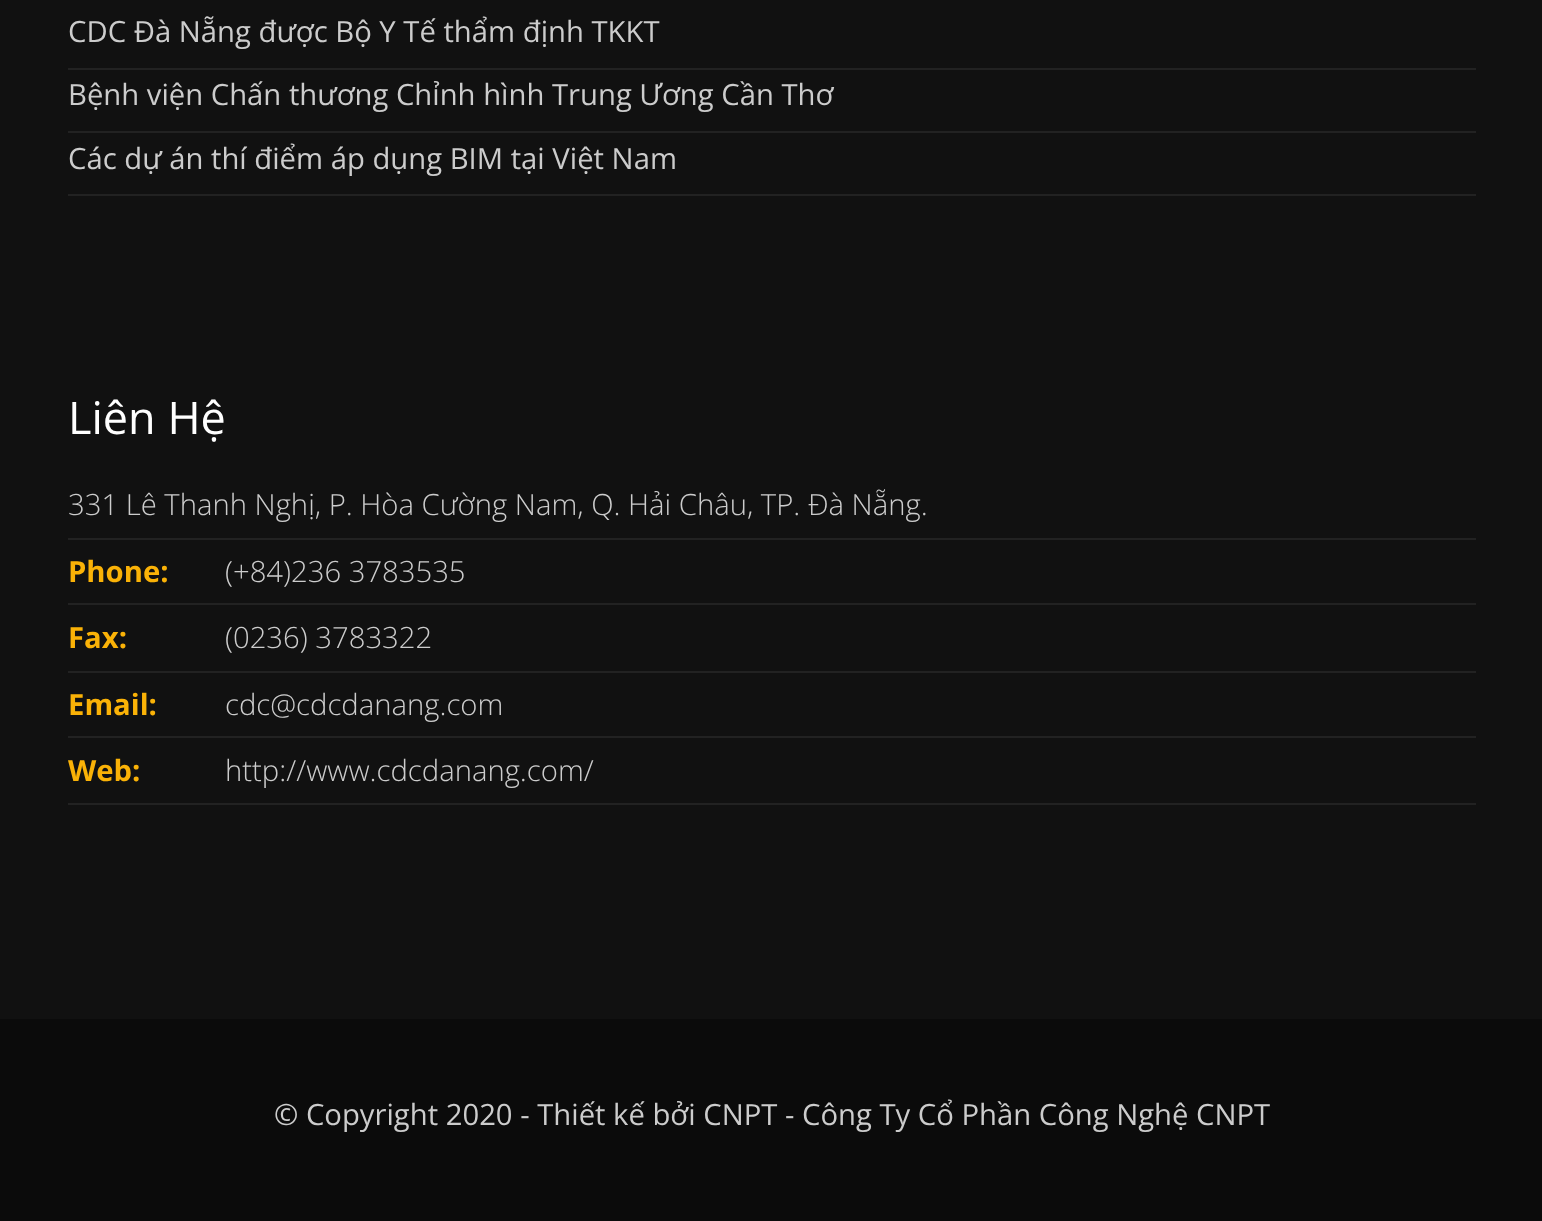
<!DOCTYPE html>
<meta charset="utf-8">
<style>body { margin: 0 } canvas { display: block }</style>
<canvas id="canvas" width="1542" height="1221"></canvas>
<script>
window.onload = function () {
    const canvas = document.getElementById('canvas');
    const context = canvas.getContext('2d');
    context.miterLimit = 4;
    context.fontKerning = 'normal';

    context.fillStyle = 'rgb(17, 17, 17)';
    context.fillRect(0, 0, 1542, 1221);
    context.fillStyle = 'rgb(34, 34, 34)';
    context.fillRect(68, 68, 1408, 2);
    context.fillRect(68, 131, 1408, 2);
    context.fillRect(68, 194, 1408, 2);
    context.fillRect(68, 538, 1408, 2);
    context.fillRect(68, 603, 1408, 2);
    context.fillRect(68, 671, 1408, 2);
    context.fillRect(68, 736, 1408, 2);
    context.fillRect(68, 803, 1408, 2);
    context.fillStyle = 'rgb(11, 11, 11)';
    context.fillRect(0, 1019, 1542, 202);
    context.font = '29.25px Open Sans';
    context.fillStyle = 'rgb(204, 204, 204)';
    context.fillText('CDC Đà Nẵng được Bộ Y Tế thẩm định TKKT', 68, 42);
    context.fillText('Bệnh viện Chấn thương Chỉnh hình Trung Ương Cần Thơ', 68, 105);
    context.fillText('Các dự án thí điểm áp dụng BIM tại Việt Nam', 68, 169);
    context.font = '45px Open Sans';
    context.fillStyle = 'rgb(255, 255, 255)';
    context.fillText('Liên Hệ', 68, 434);
    context.font = '300 29.25px Open Sans';
    context.fillStyle = 'rgb(204, 204, 204)';
    context.fillText('331 Lê Thanh Nghị, P. Hòa Cường Nam, Q. Hải Châu, TP. Đà Nẵng.', 68, 515);
    context.font = 'bold 29.25px Open Sans';
    context.fillStyle = 'rgb(250, 178, 7)';
    context.fillText('Phone:', 68, 582);
    context.font = '300 29.25px Open Sans';
    context.fillStyle = 'rgb(204, 204, 204)';
    context.fillText('(+84)236 3783535', 225, 582);
    context.font = 'bold 29.25px Open Sans';
    context.fillStyle = 'rgb(250, 178, 7)';
    context.fillText('Fax:', 68, 648);
    context.font = '300 29.25px Open Sans';
    context.fillStyle = 'rgb(204, 204, 204)';
    context.fillText('(0236) 3783322', 225, 648);
    context.font = 'bold 29.25px Open Sans';
    context.fillStyle = 'rgb(250, 178, 7)';
    context.fillText('Email:', 68, 715);
    context.font = '300 29.25px Open Sans';
    context.fillStyle = 'rgb(204, 204, 204)';
    context.fillText('cdc@cdcdanang.com', 225, 715);
    context.font = 'bold 29.25px Open Sans';
    context.fillStyle = 'rgb(250, 178, 7)';
    context.fillText('Web:', 68, 781);
    context.font = '300 29.25px Open Sans';
    context.fillStyle = 'rgb(204, 204, 204)';
    context.fillText('http://www.cdcdanang.com/', 225, 781);
    context.font = '29.25px Open Sans';
    context.fillText('© Copyright 2020 - Thiết kế bởi CNPT - Công Ty Cổ Phần Công Nghệ CNPT', 274, 1125);
};
</script>
